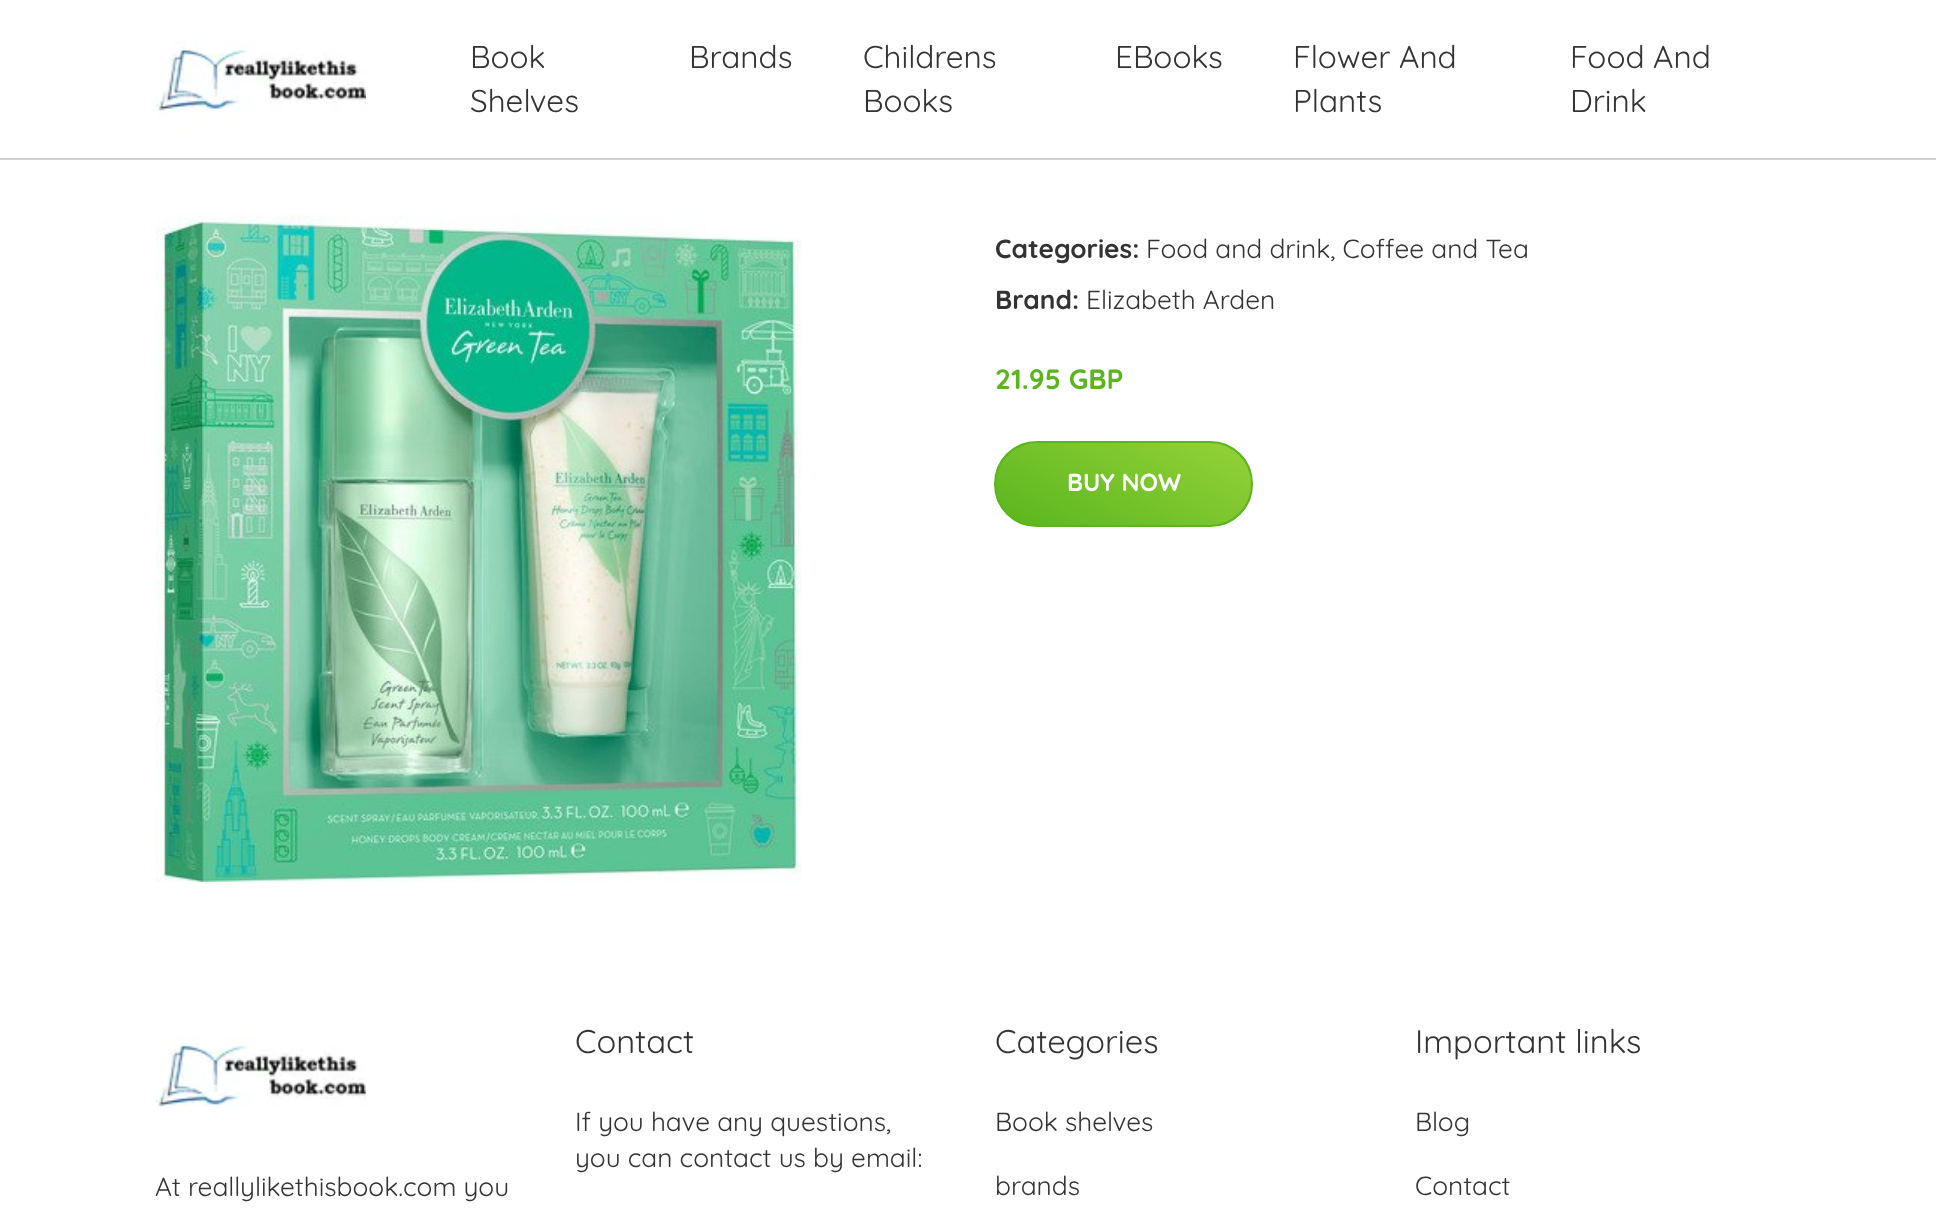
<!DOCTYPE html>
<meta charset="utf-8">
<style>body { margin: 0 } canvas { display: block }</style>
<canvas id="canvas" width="1936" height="1213"></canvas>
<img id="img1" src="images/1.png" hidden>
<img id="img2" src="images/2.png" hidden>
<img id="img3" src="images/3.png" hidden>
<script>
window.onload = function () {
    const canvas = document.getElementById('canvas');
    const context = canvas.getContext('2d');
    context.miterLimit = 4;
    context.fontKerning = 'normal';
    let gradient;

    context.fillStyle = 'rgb(255, 255, 255)';
    context.fillRect(0, 0, 1936, 1213);
    context.fillStyle = 'rgb(209, 209, 209)';
    context.fillRect(0, 158, 1936, 2);
    context.drawImage(document.getElementById('img1'), 155, 40, 211, 91);
    context.drawImage(document.getElementById('img2'), 155, 215, 647, 667);
    context.save();
    context.beginPath();
    context.roundRect(994, 441, 259, 86, 43);
    context.clip();
    gradient = context.createLinearGradient(1081, 568, 1166, 400);
    gradient.addColorStop(0, 'rgb(90, 181, 30)');
    gradient.addColorStop(1, 'rgb(149, 210, 57)');
    context.fillStyle = gradient;
    context.fillRect(996, 443, 255, 82);
    context.restore();
    context.beginPath();
    context.roundRect(995, 442, 257, 84, 42);
    context.strokeStyle = 'rgb(90, 181, 30)';
    context.lineWidth = 2;
    context.stroke();
    context.drawImage(document.getElementById('img3'), 155, 1036, 211, 71);
    context.font = '31.5px Quicksand';
    context.fillStyle = 'rgb(51, 51, 51)';
    context.fillText('Book', 470, 68);
    context.fillText('Shelves', 470, 112);
    context.fillText('Brands', 689, 68);
    context.fillText('Childrens', 863, 68);
    context.fillText('Books', 863, 112);
    context.fillText('EBooks', 1115, 68);
    context.fillText('Flower And', 1293, 68);
    context.fillText('Plants', 1293, 112);
    context.fillText('Food And', 1570, 68);
    context.fillText('Drink', 1570, 112);
    context.font = 'bold 26.25px Quicksand';
    context.fillText('Categories:', 995, 258);
    context.font = '26.25px Quicksand';
    context.fillText('Food and drink, Coffee and Tea', 1146, 258);
    context.font = 'bold 26.25px Quicksand';
    context.fillText('Brand:', 995, 309);
    context.font = '26.25px Quicksand';
    context.fillText('Elizabeth Arden', 1086, 309);
    context.font = 'bold 28px Quicksand';
    context.fillStyle = 'rgb(90, 181, 30)';
    context.fillText('21.95 GBP', 995, 389);
    context.font = 'bold 24.5px Quicksand';
    context.fillStyle = 'rgb(255, 255, 255)';
    context.fillText('BUY NOW', 1067, 491);
    context.font = '26.25px Quicksand';
    context.fillStyle = 'rgb(51, 51, 51)';
    context.fillText('At reallylikethisbook.com you', 155, 1196);
    context.font = '32.75px Quicksand';
    context.fillText('Contact', 575, 1053);
    context.font = '26.25px Quicksand';
    context.fillText('If you have any questions,', 575, 1131);
    context.fillText('you can contact us by email:', 575, 1167);
    context.font = '32.75px Quicksand';
    context.fillText('Categories', 995, 1053);
    context.font = '26.25px Quicksand';
    context.fillText('Book shelves', 995, 1131);
    context.fillText('brands', 995, 1195);
    context.font = '32.75px Quicksand';
    context.fillText('Important links', 1415, 1053);
    context.font = '26.25px Quicksand';
    context.fillText('Blog', 1415, 1131);
    context.fillText('Contact', 1415, 1195);
};
</script>
